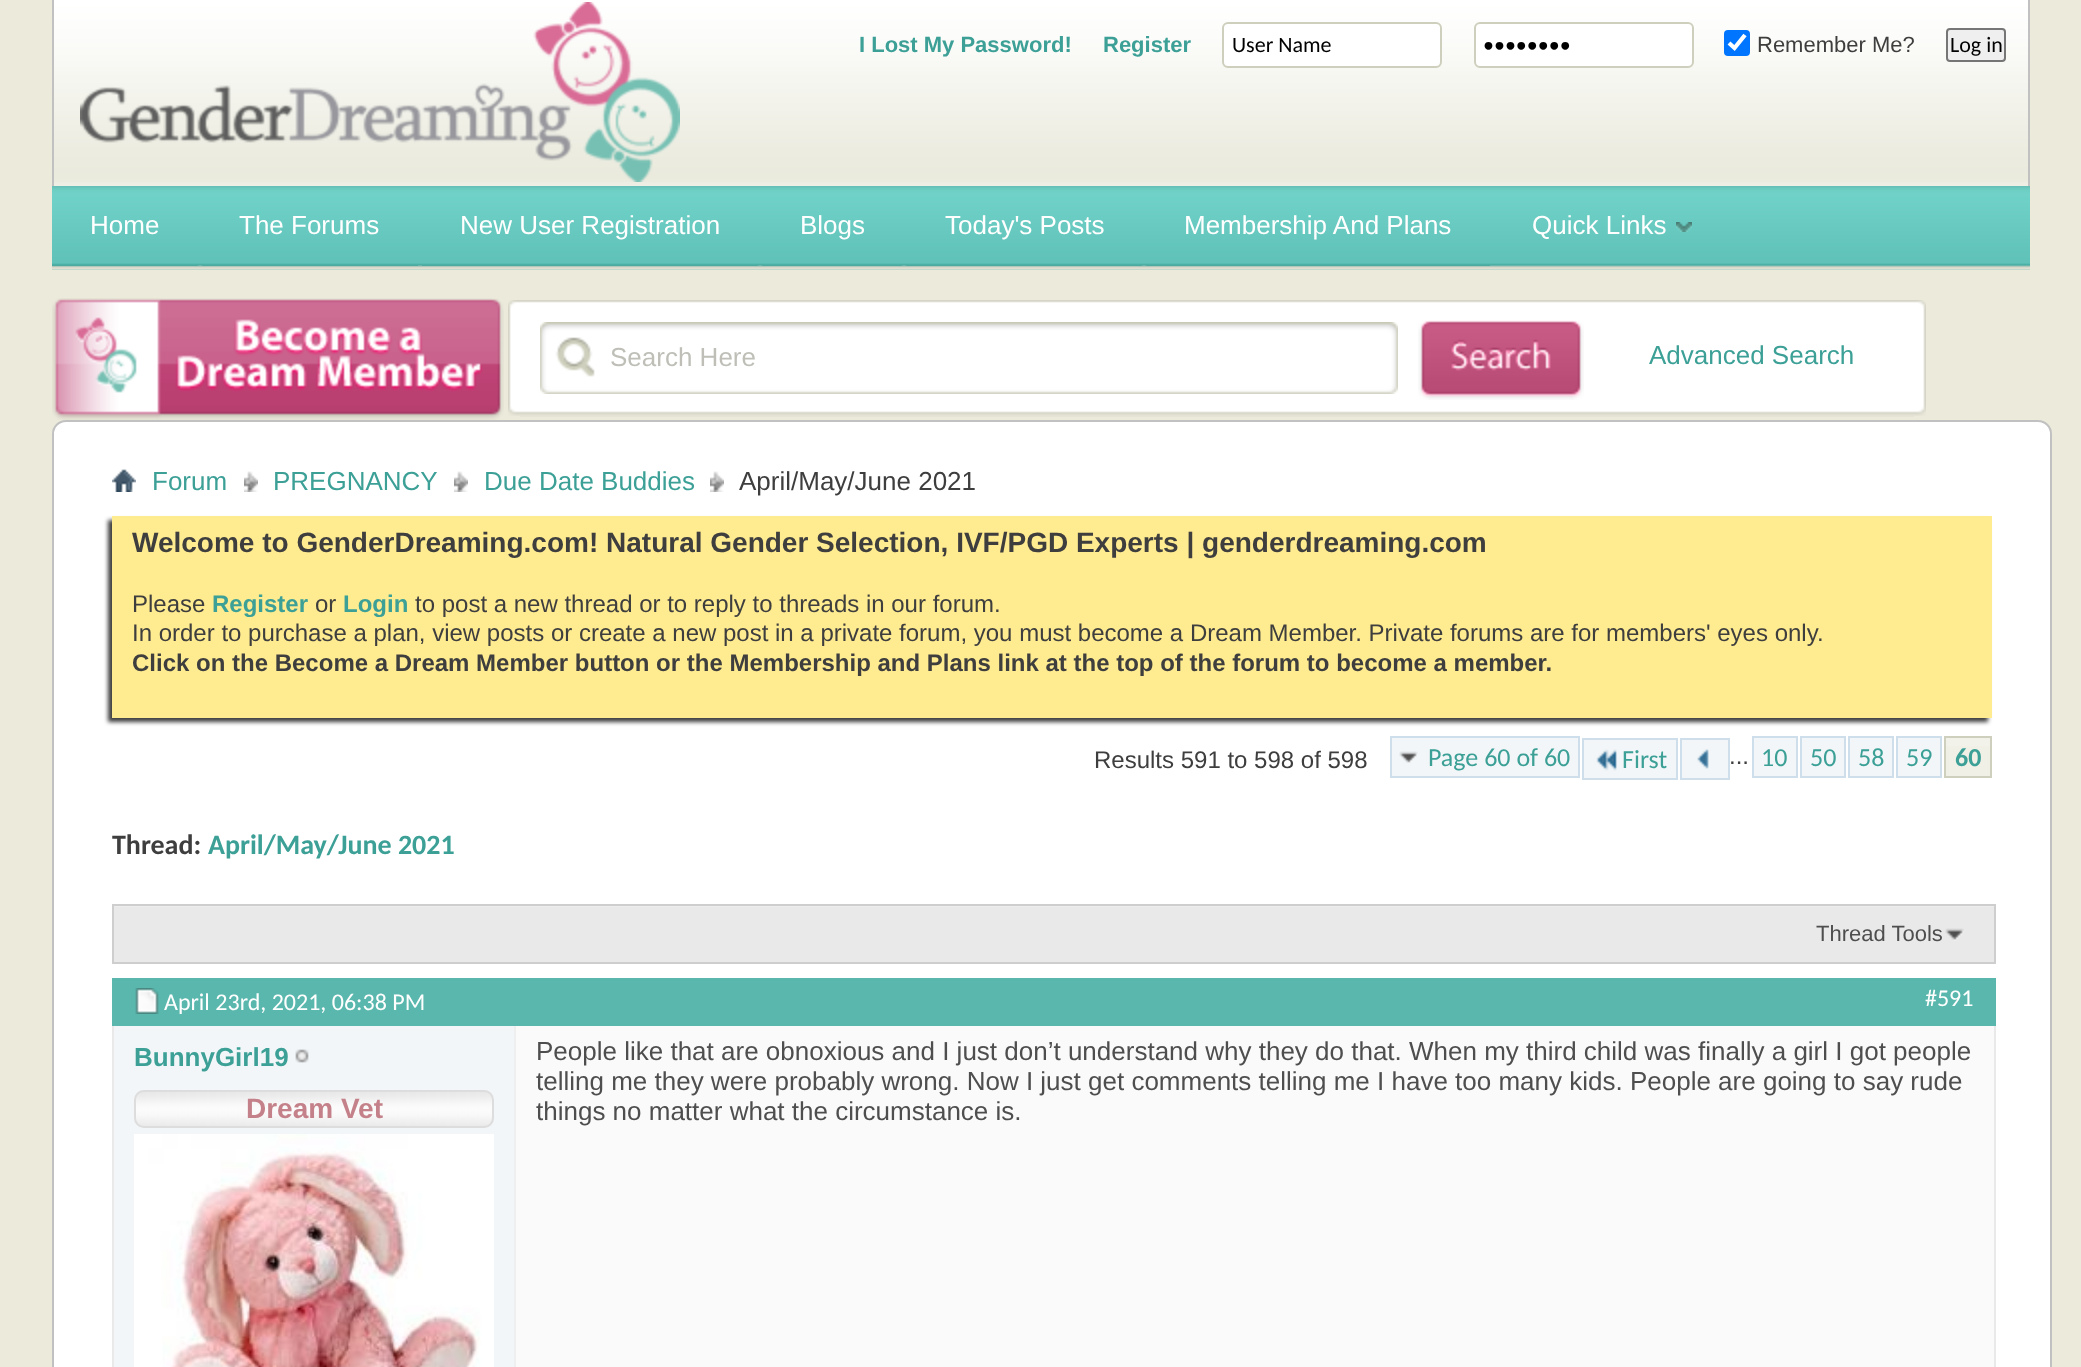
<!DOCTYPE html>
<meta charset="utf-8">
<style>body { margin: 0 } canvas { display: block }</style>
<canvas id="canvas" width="2081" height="1367"></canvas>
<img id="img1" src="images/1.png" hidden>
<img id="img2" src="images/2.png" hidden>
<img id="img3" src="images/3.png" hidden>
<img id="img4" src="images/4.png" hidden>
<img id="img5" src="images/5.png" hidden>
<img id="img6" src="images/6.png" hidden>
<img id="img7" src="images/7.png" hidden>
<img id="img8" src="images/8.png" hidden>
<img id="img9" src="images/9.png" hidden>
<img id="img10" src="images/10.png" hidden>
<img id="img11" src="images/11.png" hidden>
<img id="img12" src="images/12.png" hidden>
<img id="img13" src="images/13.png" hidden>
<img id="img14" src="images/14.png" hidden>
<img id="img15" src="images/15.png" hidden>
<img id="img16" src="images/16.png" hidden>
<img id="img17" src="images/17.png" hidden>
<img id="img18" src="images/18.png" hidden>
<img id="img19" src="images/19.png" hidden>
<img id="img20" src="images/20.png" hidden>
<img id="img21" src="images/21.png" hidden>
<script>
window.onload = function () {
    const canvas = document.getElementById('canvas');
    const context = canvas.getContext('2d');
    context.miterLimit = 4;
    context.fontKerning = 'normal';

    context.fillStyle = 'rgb(235, 234, 219)';
    context.fillRect(0, 0, 2081, 1367);
    context.drawImage(document.getElementById('img1'), 54, 0, 1974, 186);
    context.fillStyle = 'rgb(193, 193, 193)';
    context.fillRect(2028, 0, 2, 186);
    context.fillRect(52, 0, 2, 186);
    context.drawImage(document.getElementById('img2'), 80, 2, 600, 180);
    context.fillStyle = 'rgb(255, 255, 255)';
    context.beginPath();
    context.roundRect(1223, 23, 218, 44, 5);
    context.fill();
    context.strokeStyle = 'rgb(207, 207, 189)';
    context.lineWidth = 2;
    context.stroke();
    context.beginPath();
    context.roundRect(1475, 23, 218, 44, 5);
    context.fill();
    context.stroke();
    context.fillStyle = 'rgb(0, 117, 255)';
    context.beginPath();
    context.roundRect(1724, 30, 26, 26, 4);
    context.fill();
    context.beginPath();
    context.moveTo(1729, 43);
    context.lineTo(1734.5, 48);
    context.lineTo(1745, 35);
    context.strokeStyle = 'rgb(255, 255, 255)';
    context.lineWidth = 4.2;
    context.stroke();
    context.fillStyle = 'rgb(239, 239, 239)';
    context.beginPath();
    context.roundRect(1947, 29, 58, 32, 3);
    context.fill();
    context.strokeStyle = 'rgb(118, 118, 118)';
    context.lineWidth = 2;
    context.stroke();
    context.drawImage(document.getElementById('img3'), 52, 186, 1978, 84);
    context.fillStyle = 'rgb(78, 170, 158)';
    context.fillRect(52, 265, 146, 1);
    context.fillRect(202, 265, 216, 1);
    context.fillRect(422, 265, 336, 1);
    context.fillRect(762, 265, 140, 1);
    context.fillRect(906, 265, 236, 1);
    context.fillRect(1146, 265, 344, 1);
    context.drawImage(document.getElementById('img4'), 1676, 222, 16, 10);
    context.drawImage(document.getElementById('img5'), 52, 298, 452, 122);
    context.drawImage(document.getElementById('img6'), 508, 300, 12, 116);
    context.drawImage(document.getElementById('img7'), 1914, 300, 12, 116);
    context.drawImage(document.getElementById('img8'), 520, 300, 1394, 117);
    context.drawImage(document.getElementById('img9'), 540, 322, 858, 72);
    context.drawImage(document.getElementById('img10'), 1418, 320, 166, 80);
    context.fillStyle = 'rgb(255, 255, 255)';
    context.beginPath();
    context.roundRect(53, 421, 1998, 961, 13);
    context.fill();
    context.strokeStyle = 'rgb(193, 193, 193)';
    context.stroke();
    context.drawImage(document.getElementById('img11'), 112, 469, 24, 23);
    context.drawImage(document.getElementById('img12'), 244, 471, 14, 21);
    context.drawImage(document.getElementById('img12'), 454, 471, 14, 21);
    context.drawImage(document.getElementById('img12'), 710, 471, 14, 21);
    context.fillStyle = 'rgb(62, 62, 62)';
    context.filter = 'blur(2px)';
    context.beginPath();
    context.rect(108, 520, 1880, 202);
    context.fill();
    context.filter = 'none';
    context.fillStyle = 'rgb(255, 235, 144)';
    context.fillRect(112, 516, 1880, 202);
    context.fillStyle = 'rgb(242, 246, 248)';
    context.fillRect(1392, 738, 186, 38);
    context.drawImage(document.getElementById('img13'), 1399, 751, 19, 12);
    context.strokeStyle = 'rgb(206, 223, 235)';
    context.strokeRect(1391, 737, 188, 40);
    context.fillRect(1584, 740, 92, 38);
    context.drawImage(document.getElementById('img14'), 1596, 749, 21, 22);
    context.fillStyle = 'rgb(206, 223, 235)';
    context.fillRect(1582, 738, 96, 2);
    context.fillRect(1582, 778, 40, 2);
    context.fillRect(1582, 738, 2, 42);
    context.fillRect(1676, 738, 2, 42);
    context.fillRect(1622, 778, 56, 2);
    context.fillStyle = 'rgb(242, 246, 248)';
    context.beginPath();
    context.rect(1681, 739, 48, 40);
    context.fill();
    context.stroke();
    context.drawImage(document.getElementById('img15'), 1697, 749, 12, 20);
    context.beginPath();
    context.rect(1753, 737, 44, 40);
    context.fill();
    context.stroke();
    context.beginPath();
    context.rect(1801, 737, 44, 40);
    context.fill();
    context.stroke();
    context.beginPath();
    context.rect(1849, 737, 44, 40);
    context.fill();
    context.stroke();
    context.beginPath();
    context.rect(1897, 737, 44, 40);
    context.fill();
    context.stroke();
    context.fillStyle = 'rgb(240, 240, 230)';
    context.fillRect(1946, 738, 44, 38);
    context.drawImage(document.getElementById('img16'), 1946, 738, 44, 8);
    context.strokeStyle = 'rgb(207, 207, 189)';
    context.strokeRect(1945, 737, 46, 40);
    context.fillStyle = 'rgb(233, 233, 233)';
    context.fillRect(114, 907, 1880, 55);
    context.fillStyle = 'rgb(237, 237, 237)';
    context.fillRect(112, 906, 1884, 1);
    context.strokeStyle = 'rgb(206, 206, 206)';
    context.strokeRect(113, 905, 1882, 58);
    context.drawImage(document.getElementById('img17'), 1945, 928, 19, 13);
    context.strokeStyle = 'rgb(233, 233, 233)';
    context.strokeRect(113, 979, 1882, 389);
    context.fillStyle = 'rgb(89, 183, 173)';
    context.fillRect(112, 978, 1884, 48);
    context.drawImage(document.getElementById('img18'), 135, 988, 24, 26);
    context.fillStyle = 'rgb(242, 246, 248)';
    context.fillRect(114, 1026, 400, 341);
    context.drawImage(document.getElementById('img19'), 295, 1049, 14, 14);
    context.drawImage(document.getElementById('img20'), 134, 1090, 360, 38);
    context.beginPath();
    context.roundRect(135, 1091, 358, 36, 9);
    context.strokeStyle = 'rgb(221, 221, 221)';
    context.stroke();
    context.drawImage(document.getElementById('img21'), 134, 1134, 360, 233);
    context.fillStyle = 'rgb(250, 250, 250)';
    context.fillRect(516, 1026, 1478, 341);
    context.fillStyle = 'rgb(239, 239, 239)';
    context.fillRect(514, 1026, 2, 341);
    context.font = 'bold 22px Liberation Sans';
    context.fillStyle = 'rgb(60, 160, 151)';
    context.fillText('I Lost My Password!', 859, 52);
    context.fillText('Register', 1103, 52);
    context.font = '22px Carlito';
    context.fillStyle = 'rgb(0, 0, 0)';
    context.fillText('User Name', 1232, 52);
    context.fillText('••••••••', 1483, 52);
    context.font = '22px Liberation Sans';
    context.fillStyle = 'rgb(62, 62, 62)';
    context.fillText('Remember Me?', 1757, 52);
    context.font = '22px Carlito';
    context.fillStyle = 'rgb(0, 0, 0)';
    context.fillText('Log in', 1950, 52);
    context.font = '26px Liberation Sans';
    context.fillStyle = 'rgb(255, 255, 255)';
    context.fillText('Home', 90, 234);
    context.fillText('The Forums', 239, 234);
    context.fillText('New User Registration', 460, 234);
    context.fillText('Blogs', 800, 234);
    context.fillText('Today\'s Posts', 945, 234);
    context.fillText('Membership And Plans', 1184, 234);
    context.fillText('Quick Links', 1532, 234);
    context.fillStyle = 'rgb(191, 191, 184)';
    context.fillText('Search Here', 610, 366);
    context.fillStyle = 'rgb(60, 160, 151)';
    context.fillText('Advanced Search', 1649, 364);
    context.fillText('Forum', 152, 490);
    context.fillText('PREGNANCY', 273, 490);
    context.fillText('Due Date Buddies', 484, 490);
    context.fillStyle = 'rgb(62, 62, 62)';
    context.fillText('April/May/June 2021', 739, 490);
    context.font = 'bold 28px Liberation Sans';
    context.fillText('Welcome to GenderDreaming.com! Natural Gender Selection, IVF/PGD Experts | genderdreaming.com', 132, 552);
    context.font = '24px Liberation Sans';
    context.fillText('Please', 132, 612);
    context.font = 'bold 24px Liberation Sans';
    context.fillStyle = 'rgb(60, 160, 151)';
    context.fillText('Register', 212, 612);
    context.font = '24px Liberation Sans';
    context.fillStyle = 'rgb(62, 62, 62)';
    context.fillText('or', 315, 612);
    context.font = 'bold 24px Liberation Sans';
    context.fillStyle = 'rgb(60, 160, 151)';
    context.fillText('Login', 343, 612);
    context.font = '24px Liberation Sans';
    context.fillStyle = 'rgb(62, 62, 62)';
    context.fillText('to post a new thread or to reply to threads in our forum.', 415, 612);
    context.fillText('In order to purchase a plan, view posts or create a new post in a private forum, you must become a Dream Member. Private forums are for members\' eyes only.', 132, 641);
    context.font = 'bold 24px Liberation Sans';
    context.fillText('Click on the Become a Dream Member button or the Membership and Plans link at the top of the forum to become a member.', 132, 671);
    context.font = '24px Liberation Sans';
    context.fillText('Results 591 to 598 of 598', 1094, 768);
    context.font = '26px Carlito';
    context.fillStyle = 'rgb(60, 160, 151)';
    context.fillText('Page 60 of 60', 1428, 766);
    context.fillText('First', 1622, 768);
    context.font = '24px Liberation Sans';
    context.fillStyle = 'rgb(62, 62, 62)';
    context.fillText('...', 1729, 764);
    context.font = '26px Carlito';
    context.fillStyle = 'rgb(60, 160, 151)';
    context.fillText('10', 1761, 766);
    context.fillText('50', 1810, 766);
    context.fillText('58', 1858, 766);
    context.fillText('59', 1906, 766);
    context.font = 'bold 26px Carlito';
    context.fillText('60', 1955, 766);
    context.font = 'bold 28px Carlito';
    context.fillStyle = 'rgb(62, 62, 62)';
    context.fillText('Thread:', 112, 854);
    context.fillStyle = 'rgb(60, 160, 151)';
    context.fillText('April/May/June 2021', 208, 854);
    context.font = '22px Liberation Sans';
    context.fillStyle = 'rgb(78, 78, 78)';
    context.fillText('Thread Tools', 1816, 941);
    context.font = '24px Carlito';
    context.fillStyle = 'rgb(255, 255, 255)';
    context.fillText('April 23rd, 2021, 06:38 PM', 164, 1010);
    context.fillText('#591', 1925, 1006);
    context.font = 'bold 26px Liberation Sans';
    context.fillStyle = 'rgb(60, 160, 151)';
    context.fillText('BunnyGirl19', 134, 1066);
    context.font = 'bold 28px Liberation Sans';
    context.fillStyle = 'rgb(196, 129, 137)';
    context.fillText('Dream Vet', 246, 1118);
    context.font = '26px Liberation Sans';
    context.fillStyle = 'rgb(78, 78, 78)';
    context.fillText('People like that are obnoxious and I just don’t understand why they do that. When my third child was finally a girl I got people', 536, 1060);
    context.fillText('telling me they were probably wrong. Now I just get comments telling me I have too many kids. People are going to say rude', 536, 1090);
    context.fillText('things no matter what the circumstance is.', 536, 1120);
};
</script>
